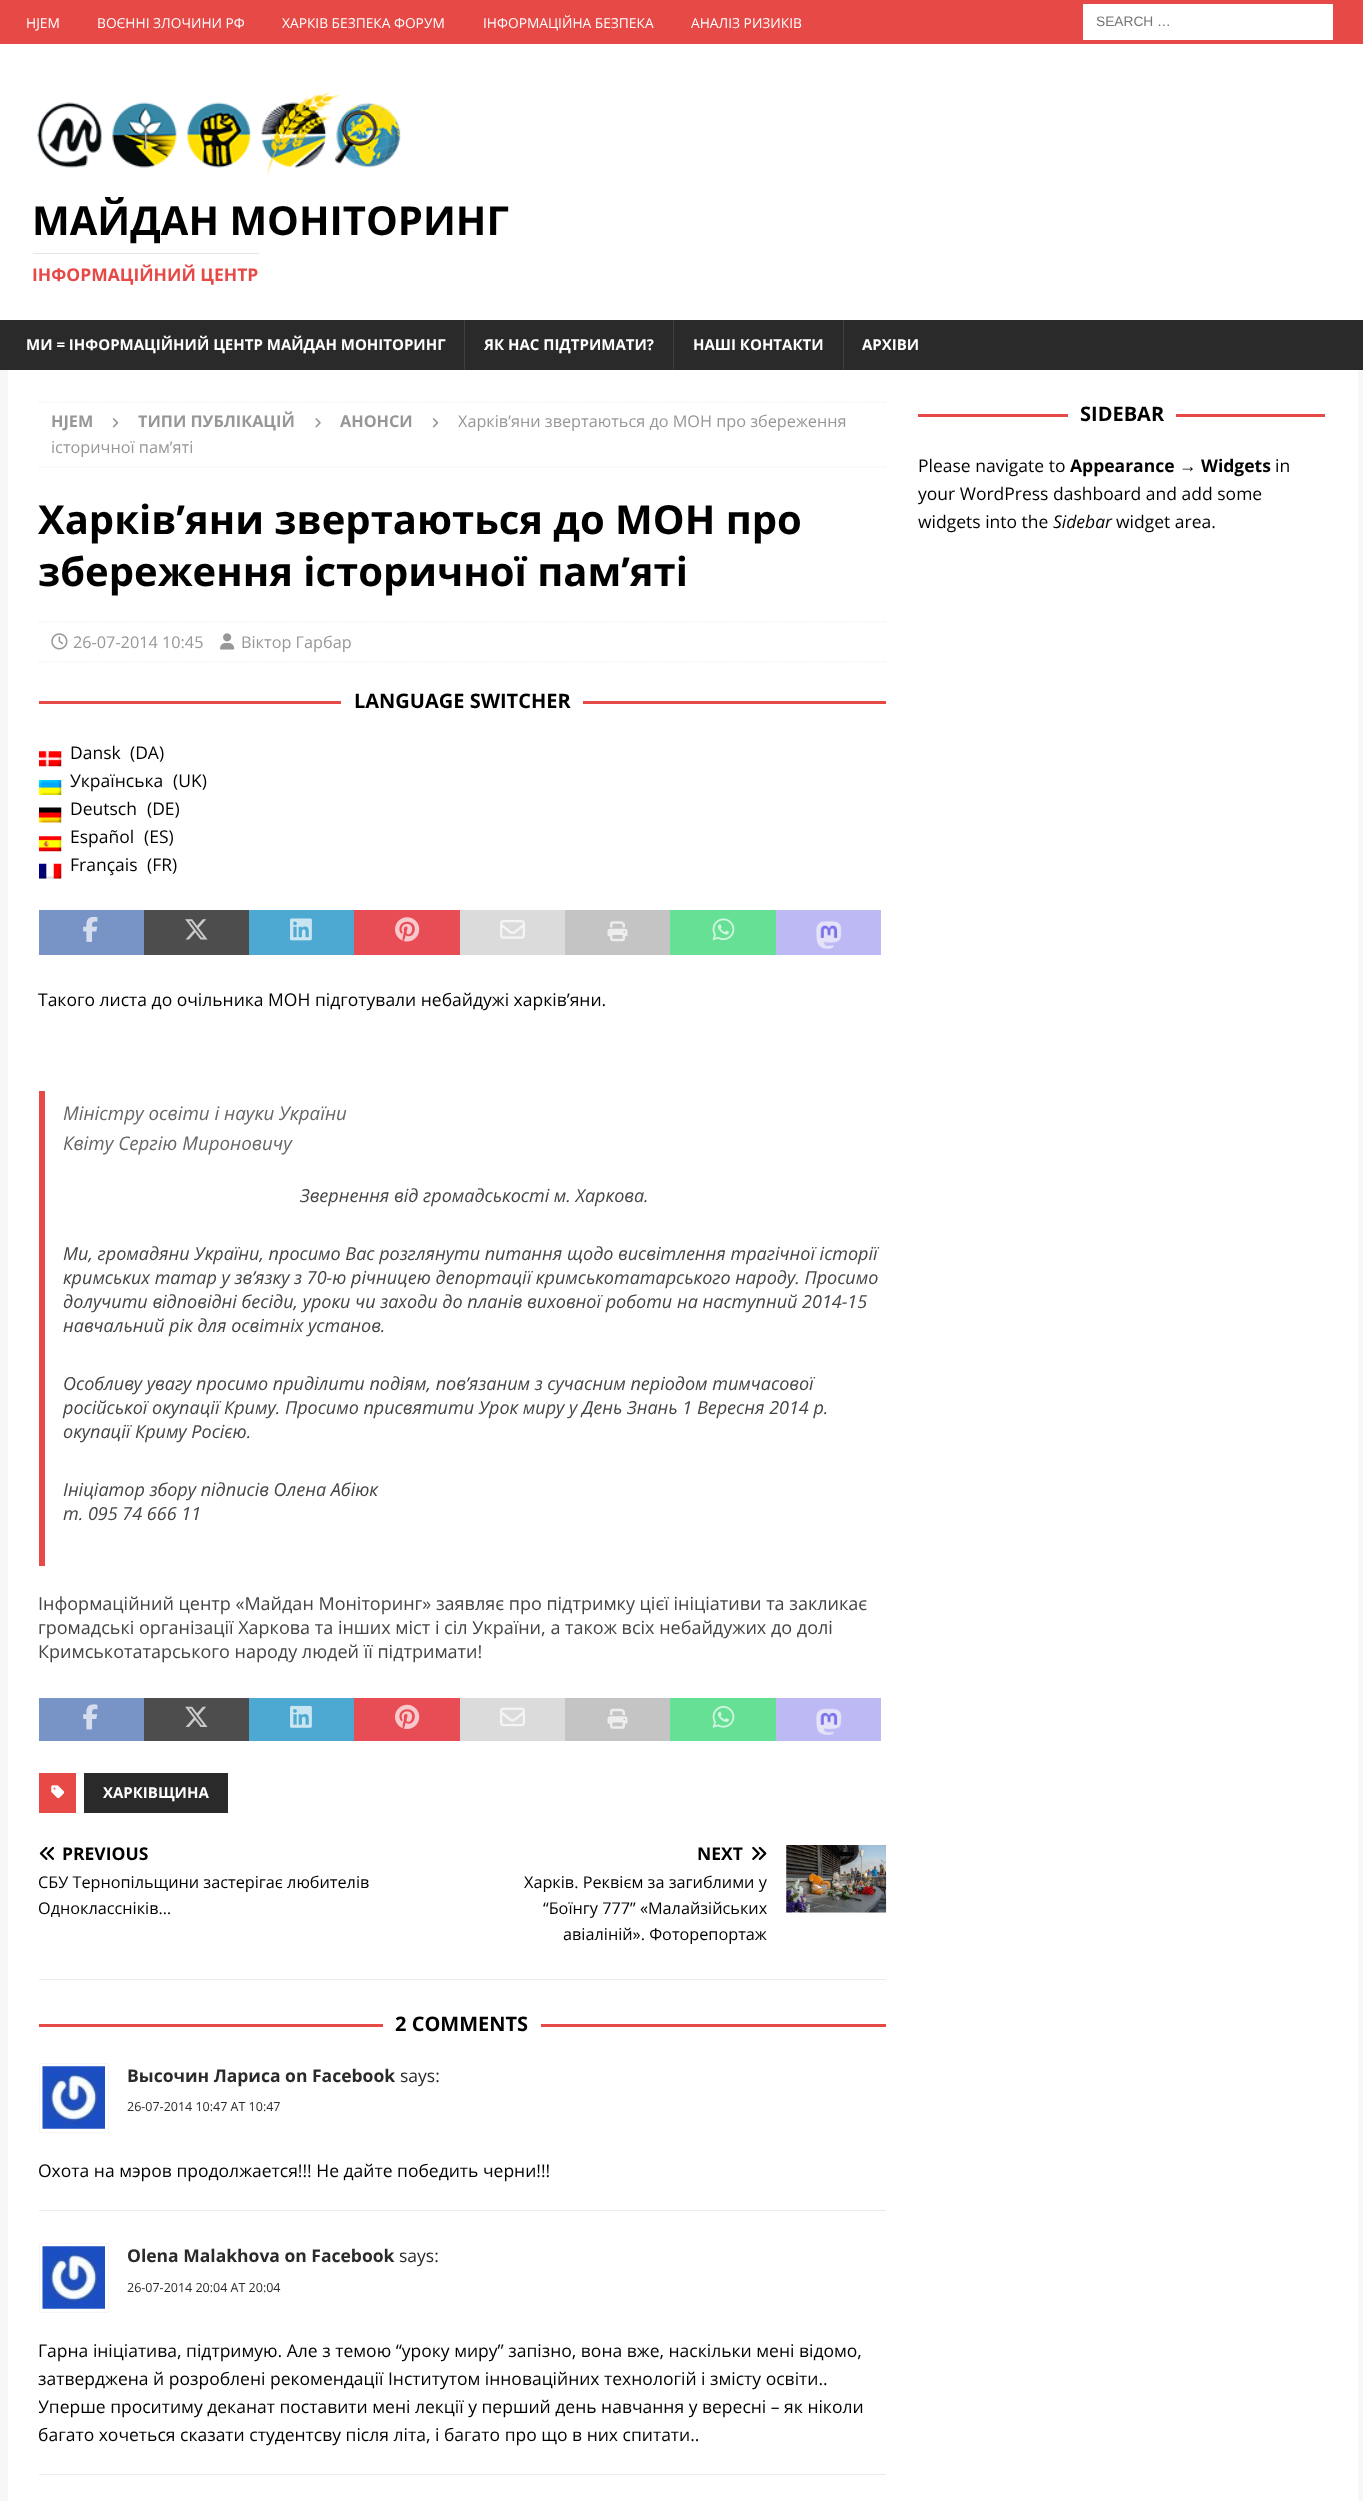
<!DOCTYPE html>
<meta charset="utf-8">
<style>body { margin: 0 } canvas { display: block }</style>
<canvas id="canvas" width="1363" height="2501"></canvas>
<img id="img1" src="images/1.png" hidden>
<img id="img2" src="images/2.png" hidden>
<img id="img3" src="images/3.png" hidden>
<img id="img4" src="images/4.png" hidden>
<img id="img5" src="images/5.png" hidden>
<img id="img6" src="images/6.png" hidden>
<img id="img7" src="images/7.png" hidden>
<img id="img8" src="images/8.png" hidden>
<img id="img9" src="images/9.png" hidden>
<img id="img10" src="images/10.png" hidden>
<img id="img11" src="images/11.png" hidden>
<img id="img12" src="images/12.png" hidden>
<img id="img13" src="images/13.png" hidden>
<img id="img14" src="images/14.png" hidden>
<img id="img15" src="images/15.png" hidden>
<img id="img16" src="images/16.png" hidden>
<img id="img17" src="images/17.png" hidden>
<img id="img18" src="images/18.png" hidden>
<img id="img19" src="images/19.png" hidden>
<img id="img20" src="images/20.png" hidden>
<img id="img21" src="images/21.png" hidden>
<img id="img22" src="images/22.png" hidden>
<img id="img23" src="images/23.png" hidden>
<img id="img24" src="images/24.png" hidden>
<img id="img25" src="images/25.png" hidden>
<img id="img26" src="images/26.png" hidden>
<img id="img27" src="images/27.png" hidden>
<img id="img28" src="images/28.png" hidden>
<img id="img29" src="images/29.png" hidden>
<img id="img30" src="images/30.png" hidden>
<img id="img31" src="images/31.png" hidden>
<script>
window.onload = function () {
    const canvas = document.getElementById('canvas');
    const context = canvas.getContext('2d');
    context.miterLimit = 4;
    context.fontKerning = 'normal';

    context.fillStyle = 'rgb(247, 247, 247)';
    context.fillRect(0, 0, 1363, 2501);
    context.fillStyle = 'rgb(230, 73, 70)';
    context.fillRect(0, 0, 1363, 44);
    context.fillStyle = 'rgb(255, 255, 255)';
    context.fillRect(1083, 4, 250, 36);
    context.fillRect(0, 44, 1363, 276);
    context.drawImage(document.getElementById('img1'), 37, 92, 364, 83);
    context.fillStyle = 'rgb(229, 229, 229)';
    context.fillRect(33, 253, 226, 1);
    context.fillStyle = 'rgb(42, 42, 42)';
    context.fillRect(0, 320, 1363, 50);
    context.fillStyle = 'rgb(63, 63, 63)';
    context.fillRect(464, 320, 1, 50);
    context.fillRect(673, 320, 1, 50);
    context.fillRect(843, 320, 1, 50);
    context.fillStyle = 'rgb(255, 255, 255)';
    context.fillRect(8, 370, 1350, 2131);
    context.beginPath();
    context.moveTo(39, 402);
    context.lineTo(886, 402);
    context.strokeStyle = 'rgb(235, 235, 235)';
    context.lineWidth = 1.2;
    context.setLineDash([1.25, 1.25]);
    context.stroke();
    context.beginPath();
    context.moveTo(39, 467);
    context.lineTo(886, 467);
    context.stroke();
    context.drawImage(document.getElementById('img2'), 112, 418, 7, 10);
    context.drawImage(document.getElementById('img3'), 315, 418, 6, 10);
    context.drawImage(document.getElementById('img2'), 432, 418, 7, 10);
    context.beginPath();
    context.moveTo(39, 622);
    context.lineTo(886, 622);
    context.stroke();
    context.beginPath();
    context.moveTo(39, 662);
    context.lineTo(886, 662);
    context.stroke();
    context.drawImage(document.getElementById('img4'), 51, 633, 17, 17);
    context.drawImage(document.getElementById('img5'), 220, 633, 15, 17);
    context.fillStyle = 'rgb(230, 73, 70)';
    context.fillRect(39, 701, 847, 3);
    context.fillStyle = 'rgb(255, 255, 255)';
    context.fillRect(341, 701, 242, 3);
    context.drawImage(document.getElementById('img6'), 39, 751, 23, 16);
    context.drawImage(document.getElementById('img7'), 39, 780, 23, 15);
    context.drawImage(document.getElementById('img8'), 39, 807, 23, 16);
    context.drawImage(document.getElementById('img9'), 39, 836, 23, 16);
    context.drawImage(document.getElementById('img10'), 39, 863, 23, 16);
    context.fillStyle = 'rgb(120, 147, 198)';
    context.fillRect(39, 910, 105, 45);
    context.drawImage(document.getElementById('img11'), 83, 916, 15, 26);
    context.fillStyle = 'rgb(77, 77, 77)';
    context.fillRect(144, 910, 105, 45);
    context.drawImage(document.getElementById('img12'), 185, 919, 23, 21);
    context.fillStyle = 'rgb(77, 169, 210)';
    context.fillRect(249, 910, 105, 45);
    context.drawImage(document.getElementById('img13'), 290, 918, 22, 23);
    context.fillStyle = 'rgb(232, 77, 86)';
    context.fillRect(354, 910, 106, 45);
    context.drawImage(document.getElementById('img14'), 395, 917, 25, 25);
    context.fillStyle = 'rgb(219, 219, 219)';
    context.fillRect(460, 910, 105, 45);
    context.drawImage(document.getElementById('img15'), 500, 920, 25, 19);
    context.fillStyle = 'rgb(196, 196, 196)';
    context.fillRect(565, 910, 105, 45);
    context.drawImage(document.getElementById('img16'), 607, 921, 21, 21);
    context.fillStyle = 'rgb(102, 224, 148)';
    context.fillRect(670, 910, 106, 45);
    context.drawImage(document.getElementById('img17'), 712, 918, 23, 23);
    context.fillStyle = 'rgb(189, 185, 245)';
    context.fillRect(776, 910, 105, 45);
    context.drawImage(document.getElementById('img18'), 816, 921, 26, 28);
    context.fillStyle = 'rgb(230, 73, 70)';
    context.fillRect(39, 1091, 6, 475);
    context.fillStyle = 'rgb(120, 147, 198)';
    context.fillRect(39, 1698, 105, 43);
    context.drawImage(document.getElementById('img19'), 83, 1704, 15, 26);
    context.fillStyle = 'rgb(77, 77, 77)';
    context.fillRect(144, 1698, 105, 43);
    context.drawImage(document.getElementById('img20'), 185, 1706, 23, 21);
    context.fillStyle = 'rgb(77, 169, 210)';
    context.fillRect(249, 1698, 105, 43);
    context.drawImage(document.getElementById('img21'), 290, 1705, 22, 23);
    context.fillStyle = 'rgb(232, 77, 86)';
    context.fillRect(354, 1698, 106, 43);
    context.drawImage(document.getElementById('img22'), 395, 1704, 25, 25);
    context.fillStyle = 'rgb(219, 219, 219)';
    context.fillRect(460, 1698, 105, 43);
    context.drawImage(document.getElementById('img23'), 500, 1707, 25, 20);
    context.fillStyle = 'rgb(196, 196, 196)';
    context.fillRect(565, 1698, 105, 43);
    context.drawImage(document.getElementById('img24'), 607, 1708, 21, 21);
    context.fillStyle = 'rgb(102, 224, 148)';
    context.fillRect(670, 1698, 106, 43);
    context.drawImage(document.getElementById('img25'), 712, 1705, 23, 23);
    context.fillStyle = 'rgb(189, 185, 245)';
    context.fillRect(776, 1698, 105, 43);
    context.drawImage(document.getElementById('img26'), 816, 1708, 26, 27);
    context.fillStyle = 'rgb(230, 73, 70)';
    context.fillRect(39, 1773, 37, 40);
    context.drawImage(document.getElementById('img27'), 51, 1785, 13, 14);
    context.fillStyle = 'rgb(42, 42, 42)';
    context.fillRect(84, 1773, 144, 40);
    context.fillStyle = 'rgb(235, 235, 235)';
    context.fillRect(39, 1979, 847, 1);
    context.drawImage(document.getElementById('img28'), 39, 1846, 15, 14);
    context.drawImage(document.getElementById('img29'), 752, 1846, 15, 14);
    context.drawImage(document.getElementById('img30'), 786, 1845, 101, 68);
    context.fillStyle = 'rgb(230, 73, 70)';
    context.fillRect(39, 2024, 847, 3);
    context.fillStyle = 'rgb(255, 255, 255)';
    context.fillRect(383, 2024, 158, 3);
    context.fillStyle = 'rgb(235, 235, 235)';
    context.fillRect(39, 2210, 847, 1);
    context.strokeStyle = 'rgb(245, 245, 245)';
    context.lineWidth = 1;
    context.setLineDash([]);
    context.strokeRect(39.5, 2063.5, 69, 69);
    context.drawImage(document.getElementById('img31'), 42, 2066, 63, 63);
    context.fillRect(39, 2474, 847, 1);
    context.strokeRect(39.5, 2243.5, 69, 69);
    context.drawImage(document.getElementById('img31'), 42, 2246, 63, 63);
    context.fillStyle = 'rgb(230, 73, 70)';
    context.fillRect(918, 414, 407, 3);
    context.fillStyle = 'rgb(255, 255, 255)';
    context.fillRect(1068, 414, 108, 3);
    context.font = '13.75px Open Sans';
    context.fillText('HJEM', 26, 28);
    context.fillText('ВОЄННІ ЗЛОЧИНИ РФ', 97, 28);
    context.fillText('ХАРКІВ БЕЗПЕКА ФОРУМ', 282, 28);
    context.fillText('ІНФОРМАЦІЙНА БЕЗПЕКА', 483, 28);
    context.fillText('АНАЛІЗ РИЗИКІВ', 691, 28);
    context.font = '13.75px Liberation Sans';
    context.fillStyle = 'rgb(117, 117, 117)';
    context.fillText('SEARCH …', 1096, 26);
    context.font = 'bold 40px Open Sans';
    context.fillStyle = 'rgb(0, 0, 0)';
    context.fillText('МАЙДАН МОНІТОРИНГ', 32, 235);
    context.font = 'bold 17.5px Open Sans';
    context.fillStyle = 'rgb(230, 73, 70)';
    context.fillText('ІНФОРМАЦІЙНИЙ ЦЕНТР', 32, 281);
    context.font = 'bold 15px Open Sans';
    context.fillStyle = 'rgb(255, 255, 255)';
    context.fillText('МИ = ІНФОРМАЦІЙНИЙ ЦЕНТР МАЙДАН МОНІТОРИНГ', 26, 350);
    context.fillText('ЯК НАС ПІДТРИМАТИ?', 484, 350);
    context.fillText('НАШІ КОНТАКТИ', 693, 350);
    context.fillText('АРХІВИ', 862, 350);
    context.font = 'bold 16.25px Open Sans';
    context.fillStyle = 'rgb(151, 151, 151)';
    context.fillText('HJEM', 51, 427);
    context.fillText('ТИПИ ПУБЛІКАЦІЙ', 138, 427);
    context.fillText('АНОНСИ', 340, 427);
    context.font = '16.25px Open Sans';
    context.fillText('Харків’яни звертаються до МОН про збереження', 458, 427);
    context.fillText('історичної пам’яті', 51, 453);
    context.font = 'bold 40px Open Sans';
    context.fillStyle = 'rgb(0, 0, 0)';
    context.fillText('Харків’яни звертаються до МОН про', 38, 534);
    context.fillText('збереження історичної пам’яті', 38, 586);
    context.font = '16.25px Open Sans';
    context.fillStyle = 'rgb(151, 151, 151)';
    context.fillText('26-07-2014 10:45', 73, 648);
    context.fillText('Віктор Гарбар', 241, 648);
    context.font = 'bold 20px Open Sans';
    context.fillStyle = 'rgb(0, 0, 0)';
    context.fillText('LANGUAGE SWITCHER', 354, 708);
    context.font = '17.5px Open Sans';
    context.fillText('Dansk', 70, 759);
    context.fillText('(DA)', 130, 759);
    context.fillText('Українська', 70, 787);
    context.fillText('(UK)', 173, 787);
    context.fillText('Deutsch', 70, 815);
    context.fillText('(DE)', 147, 815);
    context.fillText('Español', 70, 843);
    context.fillText('(ES)', 144, 843);
    context.fillText('Français', 70, 871);
    context.fillText('(FR)', 147, 871);
    context.fillText('Такого листа до очільника МОН підготували небайдужі харків’яни.', 38, 1006);
    context.font = 'italic 18.75px Open Sans';
    context.fillStyle = 'rgb(102, 102, 102)';
    context.fillText('Міністру освіти і науки України', 63, 1120);
    context.fillText('Квіту Сергію Мироновичу', 63, 1150);
    context.font = 'italic 18px Open Sans';
    context.fillStyle = 'rgb(68, 68, 68)';
    context.fillText('Звернення від громадськості м. Харкова.', 300, 1202);
    context.fillText('Ми, громадяни України, просимо Вас розглянути питання щодо висвітлення трагічної історії', 63, 1260);
    context.fillText('кримських татар у зв’язку з 70-ю річницею депортації кримськотатарського народу. Просимо', 63, 1284);
    context.fillText('долучити відповідні бесіди, уроки чи заходи до планів виховної роботи на наступний 2014-15', 63, 1308);
    context.fillText('навчальний рік для освітніх установ.', 63, 1332);
    context.fillText('Особливу увагу просимо приділити подіям, пов’язаним з сучасним періодом тимчасової', 63, 1390);
    context.fillText('російської окупації Криму. Просимо присвятити Урок миру у День Знань 1 Вересня 2014 р.', 63, 1414);
    context.fillText('окупації Криму Росією.', 63, 1438);
    context.fillText('Ініціатор збору підписів Олена Абіюк', 63, 1496);
    context.fillText('т. 095 74 666 11', 63, 1520);
    context.font = '18px Open Sans';
    context.fillText('Інформаційний центр «Майдан Моніторинг» заявляє про підтримку цієї ініціативи та закликає', 38, 1610);
    context.fillText('громадські організації Харкова та інших міст і сіл України, а також всіх небайдужих до долі', 38, 1634);
    context.fillText('Кримськотатарського народу людей її підтримати!', 38, 1658);
    context.font = 'bold 15px Open Sans';
    context.fillStyle = 'rgb(255, 255, 255)';
    context.fillText('ХАРКІВЩИНА', 103, 1798);
    context.font = 'bold 17.5px Open Sans';
    context.fillStyle = 'rgb(0, 0, 0)';
    context.fillText('PREVIOUS', 62, 1860);
    context.font = '16.25px Open Sans';
    context.fillText('СБУ Тернопільщини застерігає любителів', 38, 1888);
    context.fillText('Одноклассніків…', 38, 1914);
    context.font = 'bold 17.5px Open Sans';
    context.fillText('NEXT', 697, 1860);
    context.font = '16.25px Open Sans';
    context.fillText('Харків. Реквієм за загиблими у', 524, 1888);
    context.fillText('“Боїнгу 777” «Малайзійських', 543, 1914);
    context.fillText('авіаліній». Фоторепортаж', 563, 1940);
    context.font = 'bold 20px Open Sans';
    context.fillText('2 COMMENTS', 395, 2031);
    context.font = 'bold 17.5px Open Sans';
    context.fillStyle = 'rgb(42, 42, 42)';
    context.fillText('Высочин Лариса on Facebook', 127, 2082);
    context.font = '17.5px Open Sans';
    context.fillText('says:', 400, 2082);
    context.font = '12.5px Open Sans';
    context.fillText('26-07-2014 10:47 AT 10:47', 127, 2111);
    context.font = '17.5px Open Sans';
    context.fillStyle = 'rgb(0, 0, 0)';
    context.fillText('Охота на мэров продолжается!!! Не дайте победить черни!!!', 38, 2177);
    context.font = 'bold 17.5px Open Sans';
    context.fillStyle = 'rgb(42, 42, 42)';
    context.fillText('Olena Malakhova on Facebook', 127, 2262);
    context.font = '17.5px Open Sans';
    context.fillText('says:', 399, 2262);
    context.font = '12.5px Open Sans';
    context.fillText('26-07-2014 20:04 AT 20:04', 127, 2292);
    context.font = '17.5px Open Sans';
    context.fillStyle = 'rgb(0, 0, 0)';
    context.fillText('Гарна ініціатива, підтримую. Але з темою “уроку миру” запізно, вона вже, наскільки мені відомо,', 38, 2357);
    context.fillText('затверджена й розроблені рекомендації Інститутом інноваційних технологій і змісту освіти..', 38, 2385);
    context.save();
    context.beginPath();
    context.rect(39, 401, 847, 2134);
    context.clip();
    context.fillText('Уперше проситиму деканат поставити мені лекції у перший день навчання у вересні – як ніколи', 38, 2413);
    context.restore();
    context.fillText('багато хочеться сказати студентсву після літа, і багато про що в них спитати..', 38, 2441);
    context.font = 'bold 20px Open Sans';
    context.fillText('SIDEBAR', 1080, 421);
    context.font = '17.5px Open Sans';
    context.fillText('Please navigate to', 918, 472);
    context.font = 'bold 17.5px Open Sans';
    context.fillText('Appearance', 1070, 472);
    context.font = 'bold 17.5px Liberation Sans';
    context.fillText('→', 1179, 472);
    context.font = 'bold 17.5px Open Sans';
    context.fillText('Widgets', 1201, 472);
    context.font = '17.5px Open Sans';
    context.fillText('in', 1275, 472);
    context.fillText('your WordPress dashboard and add some', 918, 500);
    context.fillText('widgets into the', 918, 528);
    context.font = 'italic 17.5px Open Sans';
    context.fillText('Sidebar', 1053, 528);
    context.font = '17.5px Open Sans';
    context.fillText('widget area.', 1116, 528);
};
</script>
